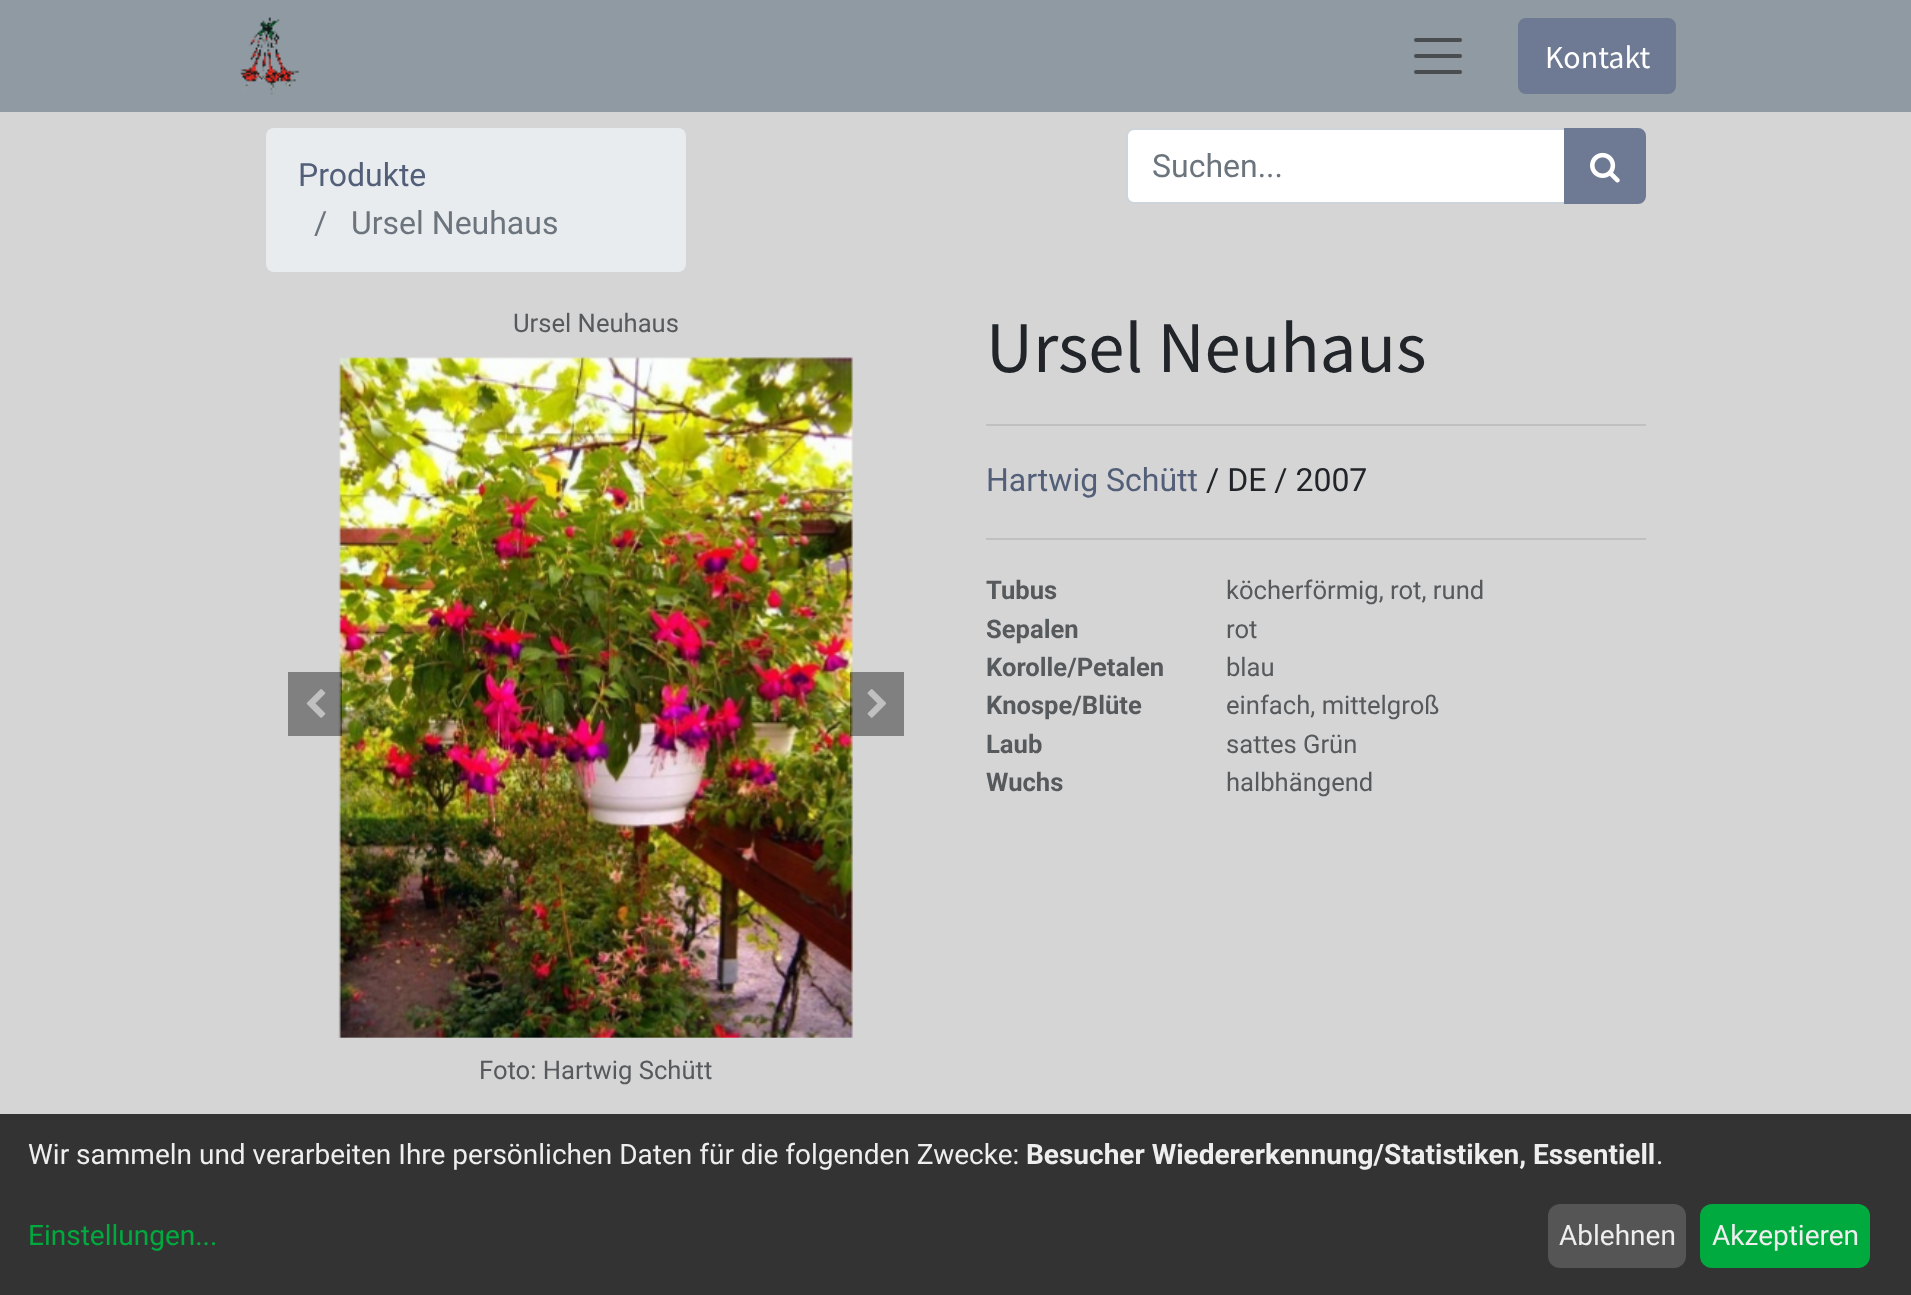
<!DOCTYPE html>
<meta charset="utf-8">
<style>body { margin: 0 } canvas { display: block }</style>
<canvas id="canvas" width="1911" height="1295"></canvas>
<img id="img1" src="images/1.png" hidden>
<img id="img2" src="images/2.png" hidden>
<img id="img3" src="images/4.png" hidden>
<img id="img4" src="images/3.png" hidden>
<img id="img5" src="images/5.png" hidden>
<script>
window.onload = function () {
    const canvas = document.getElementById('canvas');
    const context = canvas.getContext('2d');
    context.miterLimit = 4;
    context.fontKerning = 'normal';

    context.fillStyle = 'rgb(213, 213, 213)';
    context.fillRect(0, 0, 1911, 1295);
    context.fillStyle = 'rgb(143, 154, 162)';
    context.fillRect(0, 0, 1911, 112);
    context.drawImage(document.getElementById('img1'), 240, 17, 60, 78);
    context.beginPath();
    context.moveTo(1416, 40);
    context.lineTo(1460, 40);
    context.moveTo(1416, 56);
    context.lineTo(1460, 56);
    context.moveTo(1416, 72);
    context.lineTo(1460, 72);
    context.strokeStyle = 'rgb(72, 77, 81)';
    context.lineWidth = 4;
    context.lineCap = 'round';
    context.stroke();
    context.fillStyle = 'rgb(110, 121, 147)';
    context.beginPath();
    context.roundRect(1519, 19, 156, 74, 7);
    context.fill();
    context.strokeStyle = 'rgb(110, 121, 147)';
    context.lineWidth = 2;
    context.stroke();
    context.fillStyle = 'rgb(233, 236, 239)';
    context.beginPath();
    context.roundRect(266, 128, 420, 144, 8);
    context.fill();
    context.fillStyle = 'rgb(255, 255, 255)';
    context.beginPath();
    context.roundRect(1127, 129, 438, 74, [7, 0, 0, 7]);
    context.fill();
    context.strokeStyle = 'rgb(206, 212, 218)';
    context.stroke();
    context.fillStyle = 'rgb(110, 121, 147)';
    context.beginPath();
    context.roundRect(1565, 129, 80, 74, [0, 7, 7, 0]);
    context.fill();
    context.strokeStyle = 'rgb(110, 121, 147)';
    context.stroke();
    context.drawImage(document.getElementById('img2'), 1590, 152, 30, 31);
    context.drawImage(document.getElementById('img3'), 338, 357, 515, 681);
    context.fillStyle = 'rgba(0, 0, 0, 0.4)';
    context.fillRect(288, 672, 54, 64);
    context.drawImage(document.getElementById('img4'), 306, 689, 20, 29);
    context.fillRect(850, 672, 54, 64);
    context.drawImage(document.getElementById('img5'), 867, 689, 19, 29);
    context.fillStyle = 'rgb(192, 192, 192)';
    context.fillRect(986, 424, 660, 2);
    context.fillRect(986, 538, 660, 2);
    context.fillStyle = 'rgb(51, 51, 51)';
    context.fillRect(0, 1114, 1911, 181);
    context.fillStyle = 'rgb(85, 85, 85)';
    context.beginPath();
    context.roundRect(1548, 1204, 138, 64, 12);
    context.fill();
    context.fillStyle = 'rgb(0, 170, 62)';
    context.beginPath();
    context.roundRect(1700, 1204, 170, 64, 12);
    context.fill();
    context.font = '32px Source Sans Pro';
    context.fillStyle = 'rgb(255, 255, 255)';
    context.fillText('Kontakt', 1545, 68);
    context.font = '32px Roboto';
    context.fillStyle = 'rgb(83, 95, 120)';
    context.fillText('Produkte', 298, 186);
    context.fillStyle = 'rgb(108, 117, 125)';
    context.fillText('/', 314, 234);
    context.fillText('Ursel Neuhaus', 351, 234);
    context.fillText('Suchen...', 1152, 177);
    context.font = '25.6px Roboto';
    context.fillStyle = 'rgb(87, 90, 93)';
    context.fillText('Ursel Neuhaus', 513, 332);
    context.fillText('Foto: Hartwig Schütt', 479, 1079);
    context.font = '72.75px Source Sans Pro';
    context.fillStyle = 'rgb(33, 37, 41)';
    context.fillText('Ursel Neuhaus', 986, 372);
    context.font = '32px Roboto';
    context.fillStyle = 'rgb(83, 95, 120)';
    context.fillText('Hartwig Schütt', 986, 491);
    context.fillStyle = 'rgb(33, 37, 41)';
    context.fillText('/ DE / 2007', 1206, 491);
    context.font = 'bold 25.6px Roboto';
    context.fillStyle = 'rgb(87, 90, 93)';
    context.fillText('Tubus', 986, 599);
    context.font = '25.6px Roboto';
    context.fillText('köcherförmig, rot, rund', 1226, 599);
    context.font = 'bold 25.6px Roboto';
    context.fillText('Sepalen', 986, 638);
    context.font = '25.6px Roboto';
    context.fillText('rot', 1226, 638);
    context.font = 'bold 25.6px Roboto';
    context.fillText('Korolle/Petalen', 986, 676);
    context.font = '25.6px Roboto';
    context.fillText('blau', 1226, 676);
    context.font = 'bold 25.6px Roboto';
    context.fillText('Knospe/Blüte', 986, 714);
    context.font = '25.6px Roboto';
    context.fillText('einfach, mittelgroß', 1226, 714);
    context.font = 'bold 25.6px Roboto';
    context.fillText('Laub', 986, 753);
    context.font = '25.6px Roboto';
    context.fillText('sattes Grün', 1226, 753);
    context.font = 'bold 25.6px Roboto';
    context.fillText('Wuchs', 986, 791);
    context.font = '25.6px Roboto';
    context.fillText('halbhängend', 1226, 791);
    context.font = '28px Roboto';
    context.fillStyle = 'rgb(238, 238, 238)';
    context.fillText('Wir sammeln und verarbeiten Ihre persönlichen Daten für die folgenden Zwecke:', 28, 1164);
    context.font = 'bold 28px Roboto';
    context.fillText('Besucher Wiedererkennung/Statistiken, Essentiell', 1026, 1164);
    context.font = '28px Roboto';
    context.fillText('.', 1656, 1164);
    context.fillStyle = 'rgb(0, 170, 62)';
    context.fillText('Einstellungen...', 28, 1245);
    context.fillStyle = 'rgb(238, 238, 238)';
    context.fillText('Ablehnen', 1559, 1245);
    context.fillText('Akzeptieren', 1712, 1245);
};
</script>
